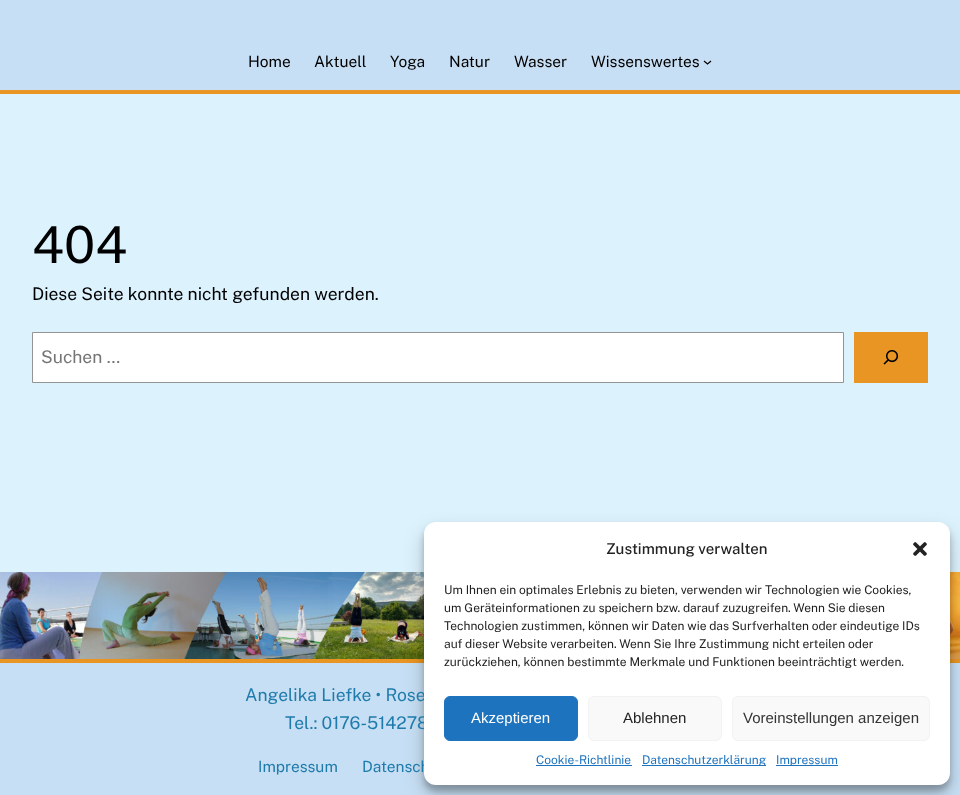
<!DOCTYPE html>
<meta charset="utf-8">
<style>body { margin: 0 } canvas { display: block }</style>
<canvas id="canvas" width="960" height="795"></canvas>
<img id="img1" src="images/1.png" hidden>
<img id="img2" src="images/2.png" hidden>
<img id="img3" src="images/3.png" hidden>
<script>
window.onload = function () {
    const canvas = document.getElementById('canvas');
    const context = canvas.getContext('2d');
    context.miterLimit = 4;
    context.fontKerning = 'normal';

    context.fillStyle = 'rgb(199, 223, 244)';
    context.fillRect(0, 0, 960, 795);
    context.fillStyle = 'rgb(233, 149, 35)';
    context.fillRect(0, 90, 960, 4);
    context.beginPath();
    context.moveTo(704, 61);
    context.lineTo(707.5, 64);
    context.lineTo(711, 61);
    context.strokeStyle = 'rgb(0, 0, 0)';
    context.lineWidth = 1.2;
    context.stroke();
    context.fillStyle = 'rgb(220, 242, 253)';
    context.fillRect(0, 94, 960, 478);
    context.fillStyle = 'rgb(255, 255, 255)';
    context.beginPath();
    context.rect(32.5, 332.5, 811, 50);
    context.fill();
    context.strokeStyle = 'rgb(148, 148, 148)';
    context.lineWidth = 1;
    context.stroke();
    context.fillStyle = 'rgb(233, 149, 35)';
    context.fillRect(854, 332, 74, 51);
    context.drawImage(document.getElementById('img1'), 883, 350, 16, 15);
    context.fillRect(0, 659, 960, 4);
    context.drawImage(document.getElementById('img2'), 0, 572, 960, 87);
    context.fillStyle = 'rgba(0, 0, 0, 0.23)';
    context.filter = 'blur(3px)';
    context.beginPath();
    context.roundRect(424, 528, 526, 263, 12);
    context.fill();
    context.filter = 'none';
    context.fillStyle = 'rgba(0, 0, 0, 0.19)';
    context.filter = 'blur(10px)';
    context.beginPath();
    context.roundRect(424, 532, 526, 263, 12);
    context.fill();
    context.filter = 'none';
    context.font = '15.5px Public Sans';
    context.fillStyle = 'rgb(0, 0, 0)';
    context.fillText('Home', 248, 67);
    context.fillText('Aktuell', 314, 67);
    context.fillText('Yoga', 390, 67);
    context.fillText('Natur', 449, 67);
    context.fillText('Wasser', 514, 67);
    context.fillText('Wissenswertes', 591, 67);
    context.font = '51px Public Sans';
    context.fillText('404', 32, 263);
    context.font = '17.5px Public Sans';
    context.fillText('Diese Seite konnte nicht gefunden werden.', 32, 300);
    context.fillStyle = 'rgb(117, 117, 117)';
    context.fillText('Suchen …', 41, 363);
    context.fillStyle = 'rgb(31, 123, 171)';
    context.fillText('Angelika Liefke • Rose', 245, 701);
    context.fillText('Tel.: 0176-514278', 285, 729);
    context.font = '15.5px Public Sans';
    context.fillText('Impressum', 258, 772);
    context.fillText('Datensch', 362, 772);
    context.fillStyle = 'rgb(255, 255, 255)';
    context.beginPath();
    context.roundRect(424, 522, 526, 263, 12);
    context.fill();
    context.font = '500 15px Public Sans';
    context.fillStyle = 'rgb(34, 34, 34)';
    context.fillText('Zustimmung verwalten', 606, 554);
    context.drawImage(document.getElementById('img3'), 913, 542, 14, 14);
    context.font = '12px Public Sans';
    context.fillText('Um Ihnen ein optimales Erlebnis zu bieten, verwenden wir Technologien wie Cookies,', 444, 594);
    context.fillText('um Geräteinformationen zu speichern bzw. darauf zuzugreifen. Wenn Sie diesen', 444, 612);
    context.fillText('Technologien zustimmen, können wir Daten wie das Surfverhalten oder eindeutige IDs', 444, 630);
    context.fillText('auf dieser Website verarbeiten. Wenn Sie Ihre Zustimmung nicht erteilen oder', 444, 648);
    context.fillText('zurückziehen, können bestimmte Merkmale und Funktionen beeinträchtigt werden.', 444, 666);
    context.fillStyle = 'rgb(30, 115, 190)';
    context.beginPath();
    context.roundRect(444.5, 696.5, 133, 44, 5.5);
    context.fill();
    context.strokeStyle = 'rgb(30, 115, 190)';
    context.stroke();
    context.font = '15px Liberation Sans';
    context.fillStyle = 'rgb(255, 255, 255)';
    context.fillText('Akzeptieren', 471, 723);
    context.fillStyle = 'rgb(249, 249, 249)';
    context.beginPath();
    context.roundRect(588.5, 696.5, 133, 44, 5.5);
    context.fill();
    context.strokeStyle = 'rgb(242, 242, 242)';
    context.stroke();
    context.fillStyle = 'rgb(34, 34, 34)';
    context.fillText('Ablehnen', 623, 723);
    context.fillStyle = 'rgb(249, 249, 249)';
    context.beginPath();
    context.roundRect(732.5, 696.5, 197, 44, 5.5);
    context.fill();
    context.stroke();
    context.fillStyle = 'rgb(51, 51, 51)';
    context.fillText('Voreinstellungen anzeigen', 743, 723);
    context.font = '12px Public Sans';
    context.fillStyle = 'rgb(30, 115, 190)';
    context.fillText('Cookie-Richtlinie', 536, 764);
    context.fillRect(536, 765, 96, 1);
    context.fillRect(642, 765, 124, 1);
    context.fillText('Datenschutzerklärung', 642, 764);
    context.fillRect(776, 765, 62, 1);
    context.fillText('Impressum', 776, 764);
};
</script>
